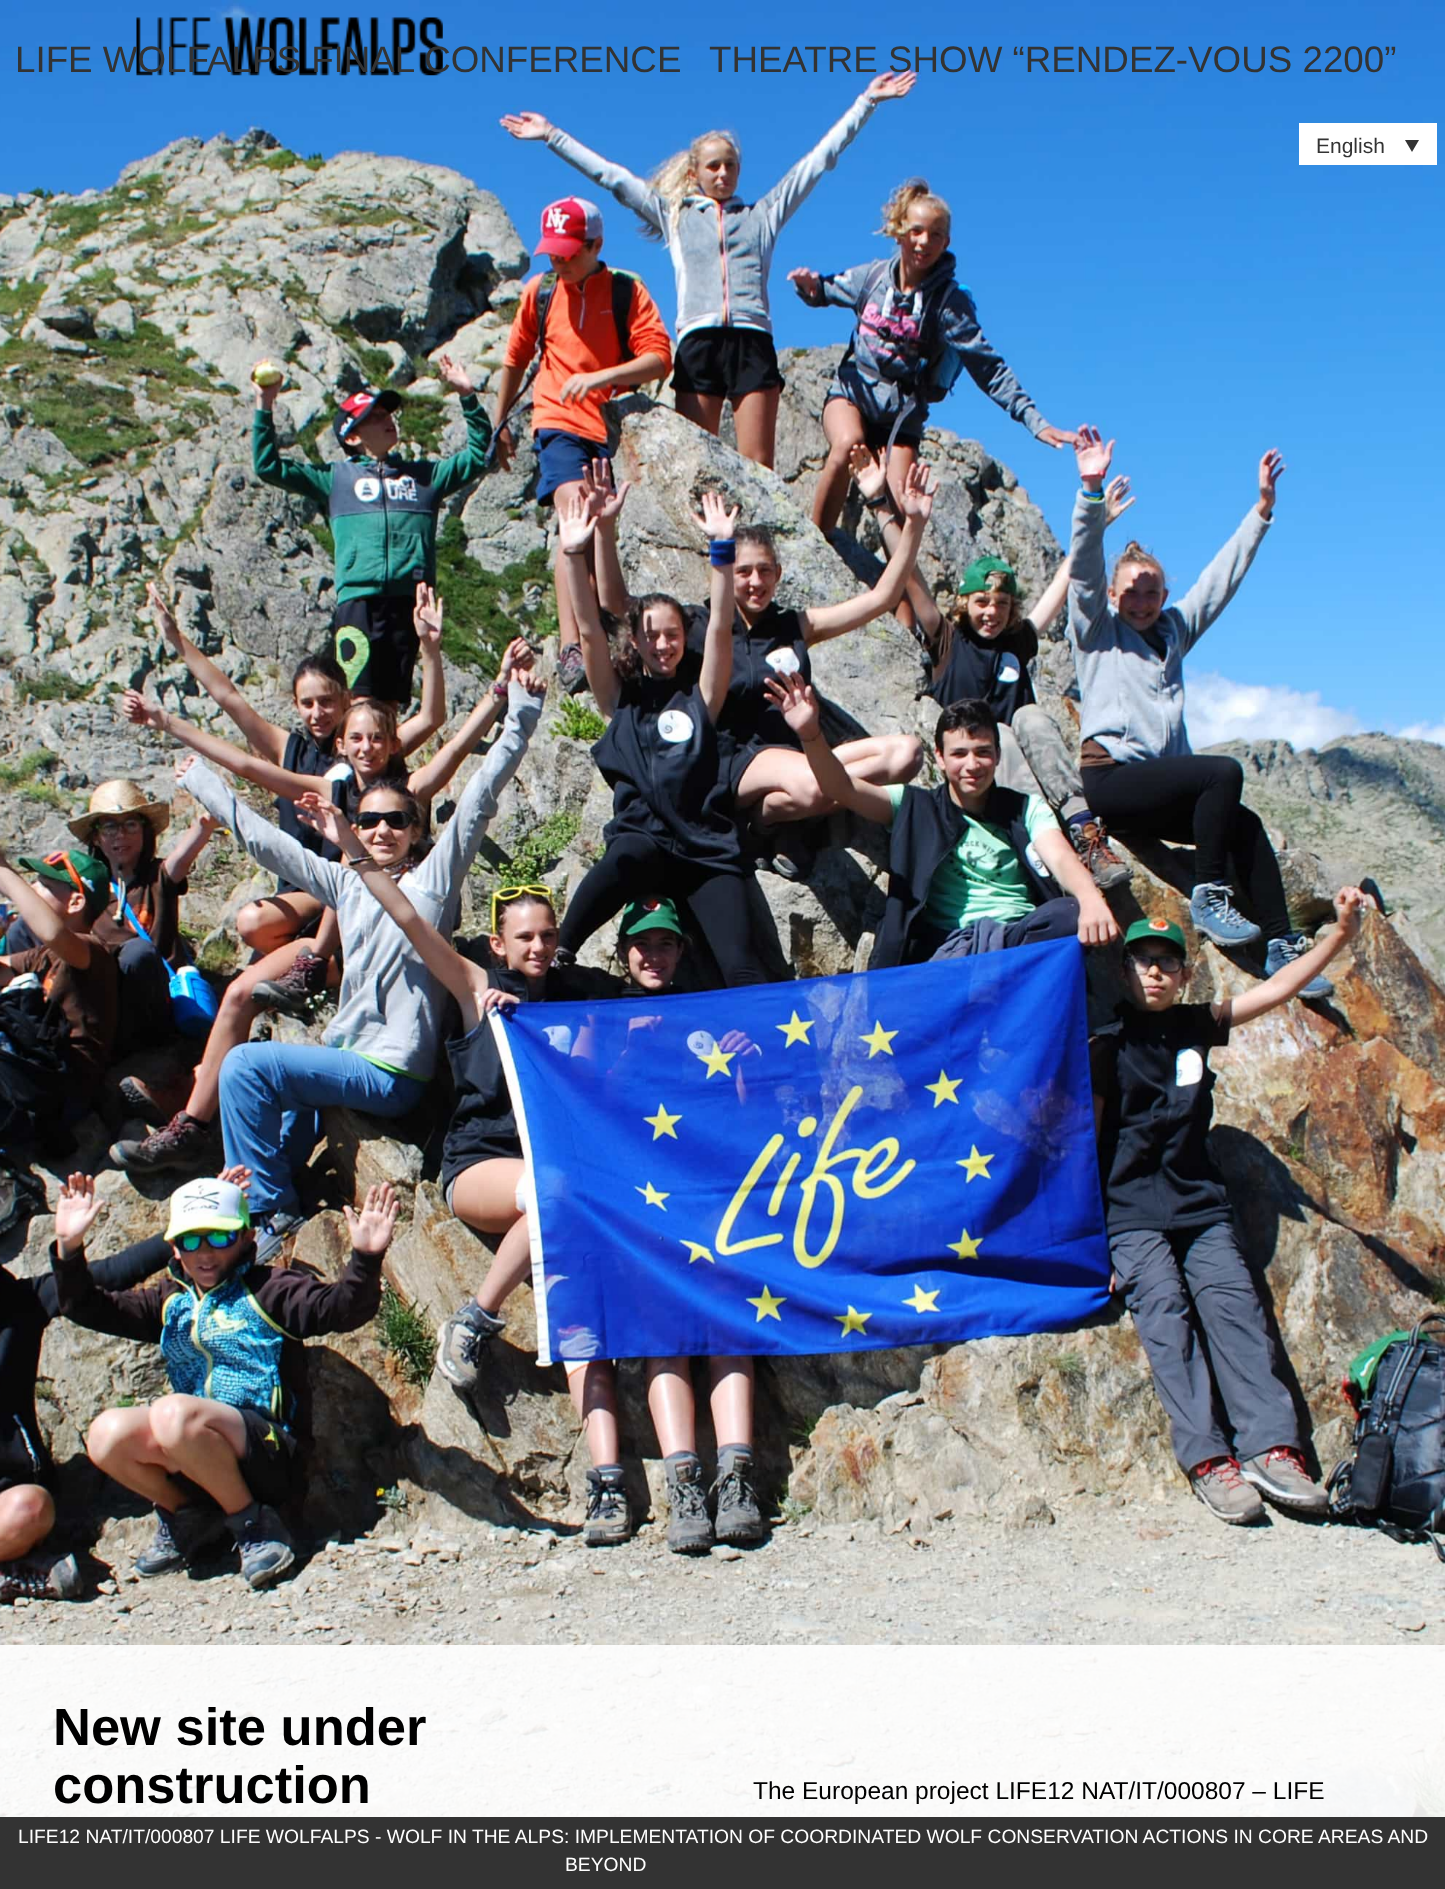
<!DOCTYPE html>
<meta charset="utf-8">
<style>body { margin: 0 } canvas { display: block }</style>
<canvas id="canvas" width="1445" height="1889"></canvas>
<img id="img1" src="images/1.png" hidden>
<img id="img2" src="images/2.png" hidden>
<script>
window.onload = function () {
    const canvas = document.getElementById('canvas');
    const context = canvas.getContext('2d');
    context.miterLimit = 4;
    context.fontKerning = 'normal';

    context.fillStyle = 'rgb(255, 255, 255)';
    context.fillRect(0, 0, 1445, 1889);
    context.drawImage(document.getElementById('img1'), 0, 0, 1445, 1817);
    context.drawImage(document.getElementById('img2'), 136, 17, 307, 59);
    context.fillRect(1299, 123, 138, 42);
    context.fillStyle = 'rgb(51, 51, 51)';
    context.beginPath();
    context.moveTo(1405, 140);
    context.lineTo(1419, 140);
    context.lineTo(1412, 152);
    context.closePath();
    context.fill();
    context.fillStyle = 'rgba(255, 255, 255, 0.9)';
    context.fillRect(0, 1645, 1445, 172);
    context.fillStyle = 'rgb(51, 51, 51)';
    context.fillRect(0, 1817, 1445, 72);
    context.font = '36.75px Liberation Sans';
    context.fillText('LIFE WOLFALPS FINAL CONFERENCE', 15, 72);
    context.fillText('THEATRE SHOW “RENDEZ-VOUS 2200”', 709, 72);
    context.font = '21px Liberation Sans';
    context.fillText('English', 1316, 153);
    context.font = 'bold 52.5px Liberation Sans';
    context.fillStyle = 'rgb(0, 0, 0)';
    context.fillText('New site under', 53, 1745);
    context.fillText('construction', 53, 1803);
    context.font = '24.5px Liberation Sans';
    context.fillText('The European project LIFE12 NAT/IT/000807 – LIFE', 753, 1799);
    context.font = '19.25px Liberation Sans';
    context.fillStyle = 'rgb(255, 255, 255)';
    context.fillText('LIFE12 NAT/IT/000807 LIFE WOLFALPS - WOLF IN THE ALPS: IMPLEMENTATION OF COORDINATED WOLF CONSERVATION ACTIONS IN CORE AREAS AND', 18, 1843);
    context.fillText('BEYOND', 565, 1871);
};
</script>
